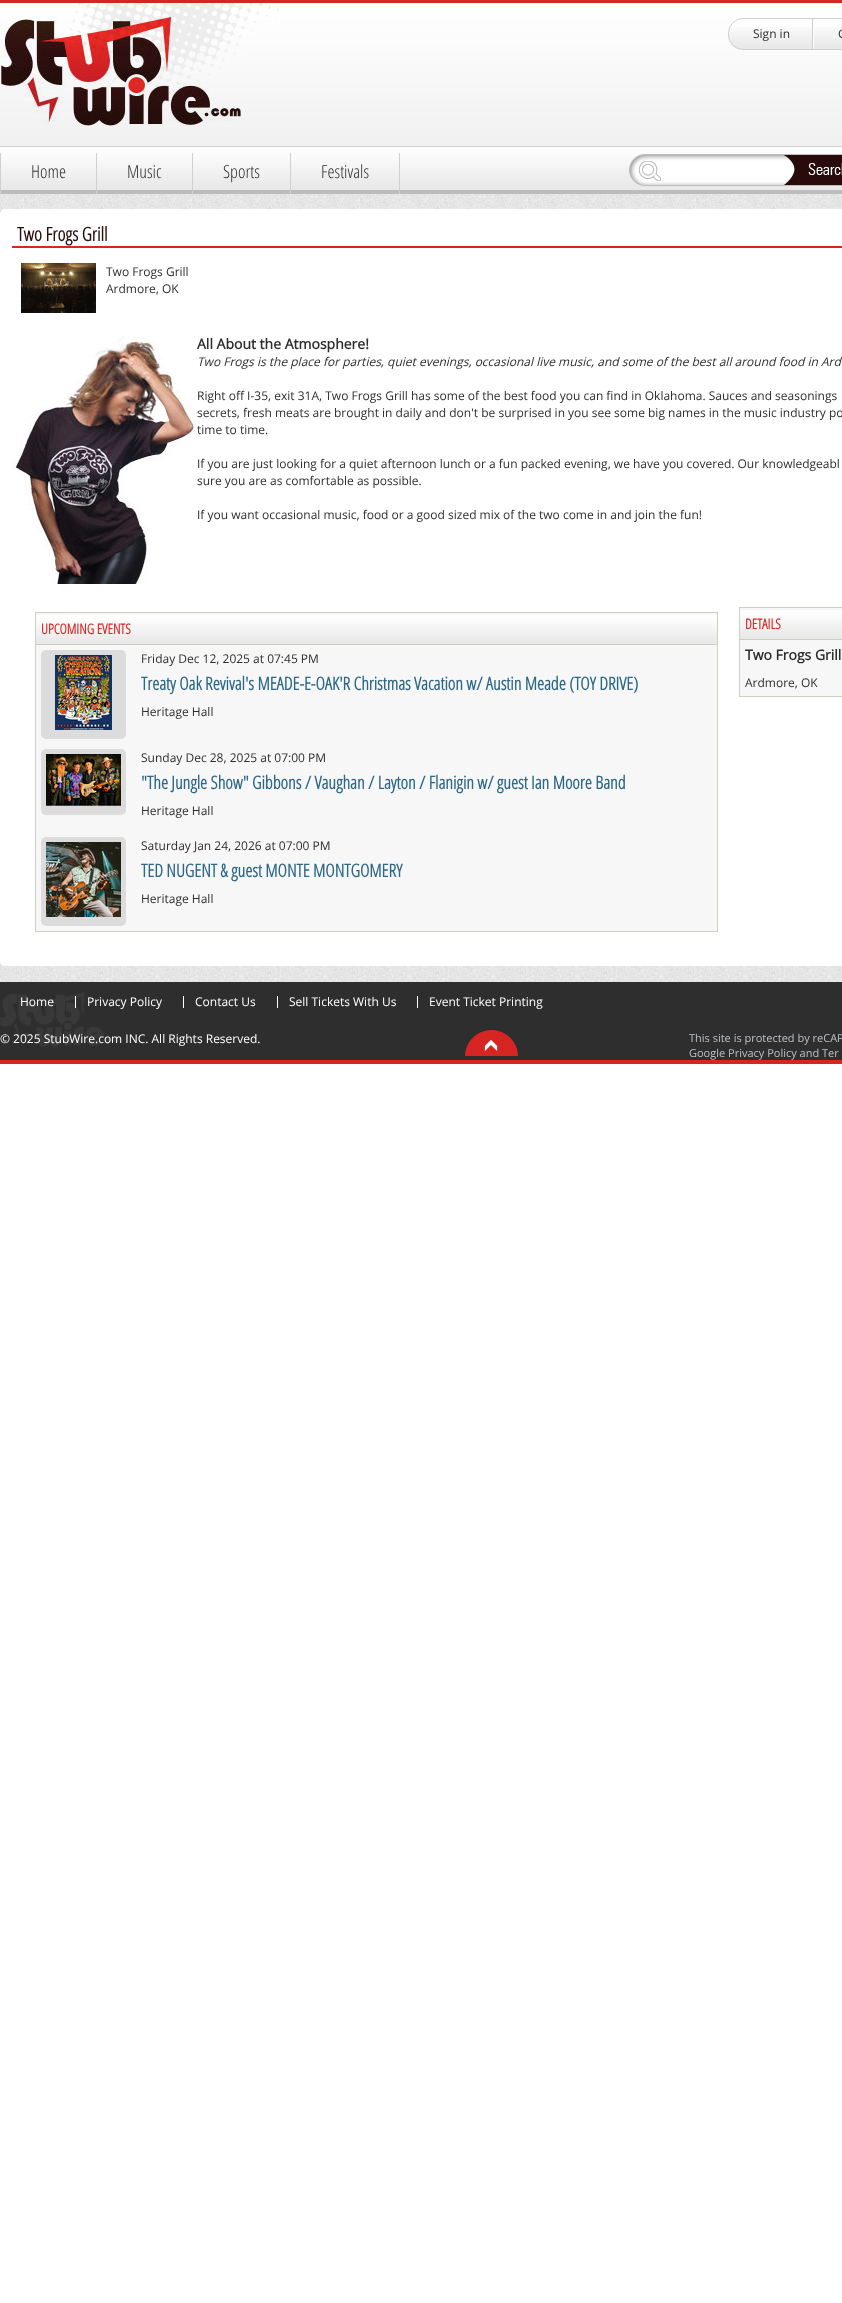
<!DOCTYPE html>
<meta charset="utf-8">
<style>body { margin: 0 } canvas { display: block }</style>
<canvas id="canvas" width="842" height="2303"></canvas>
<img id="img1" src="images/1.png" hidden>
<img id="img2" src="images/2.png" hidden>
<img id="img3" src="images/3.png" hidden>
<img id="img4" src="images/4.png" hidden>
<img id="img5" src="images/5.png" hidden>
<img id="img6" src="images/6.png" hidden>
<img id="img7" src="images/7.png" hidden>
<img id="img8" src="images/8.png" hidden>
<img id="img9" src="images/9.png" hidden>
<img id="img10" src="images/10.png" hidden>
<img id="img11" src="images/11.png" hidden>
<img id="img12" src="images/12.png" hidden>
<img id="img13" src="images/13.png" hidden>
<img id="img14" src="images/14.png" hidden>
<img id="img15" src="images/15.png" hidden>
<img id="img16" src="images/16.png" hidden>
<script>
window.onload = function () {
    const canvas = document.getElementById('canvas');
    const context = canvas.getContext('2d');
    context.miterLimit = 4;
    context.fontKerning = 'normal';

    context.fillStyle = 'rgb(255, 255, 255)';
    context.fillRect(0, 0, 842, 2303);
    context.drawImage(document.getElementById('img1'), 0, 0, 842, 194);
    context.drawImage(document.getElementById('img2'), 0, 3, 279, 123);
    context.fillStyle = 'rgb(254, 254, 254)';
    context.beginPath();
    context.roundRect(728, 18, 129, 32, 15);
    context.fill();
    context.drawImage(document.getElementById('img3'), 728, 27, 114, 22);
    context.beginPath();
    context.roundRect(728.5, 18.5, 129, 31, 14.5);
    context.strokeStyle = 'rgb(207, 207, 207)';
    context.stroke();
    context.drawImage(document.getElementById('img4'), 812, 19, 2, 30);
    context.fillStyle = 'rgb(207, 207, 207)';
    context.fillRect(0, 153, 1, 41);
    context.fillRect(96, 153, 1, 41);
    context.fillRect(192, 153, 1, 41);
    context.fillRect(399, 153, 1, 41);
    context.fillRect(290, 153, 1, 41);
    context.drawImage(document.getElementById('img5'), 629, 154, 155, 32);
    context.drawImage(document.getElementById('img6'), 784, 154, 58, 32);
    context.drawImage(document.getElementById('img7'), 0, 194, 842, 788);
    context.fillStyle = 'rgb(255, 255, 255)';
    context.beginPath();
    context.roundRect(0, 209, 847, 757, 5);
    context.fill();
    context.fillStyle = 'rgb(220, 36, 36)';
    context.fillRect(12, 246, 830, 2);
    context.drawImage(document.getElementById('img8'), 21, 263, 75, 50);
    context.drawImage(document.getElementById('img9'), 12, 336, 184, 248);
    context.fillStyle = 'rgb(205, 207, 192)';
    context.fillRect(35, 612, 683, 1);
    context.fillRect(717, 612, 1, 320);
    context.fillRect(35, 931, 683, 1);
    context.fillRect(35, 612, 1, 320);
    context.drawImage(document.getElementById('img10'), 36, 613, 681, 31);
    context.fillRect(35, 644, 683, 1);
    context.fillStyle = 'rgb(247, 247, 247)';
    context.fillRect(36, 645, 681, 286);
    context.fillStyle = 'rgb(220, 220, 220)';
    context.beginPath();
    context.roundRect(41, 650, 85, 89, 5);
    context.fill();
    context.drawImage(document.getElementById('img11'), 55, 655, 57, 75);
    context.beginPath();
    context.roundRect(41, 749, 85, 66, 5);
    context.fill();
    context.drawImage(document.getElementById('img12'), 46, 754, 75, 52);
    context.beginPath();
    context.roundRect(41, 837, 85, 89, 5);
    context.fill();
    context.drawImage(document.getElementById('img13'), 46, 842, 75, 75);
    context.fillStyle = 'rgb(205, 207, 192)';
    context.fillRect(739, 607, 103, 1);
    context.fillRect(739, 696, 103, 1);
    context.fillRect(739, 607, 1, 90);
    context.drawImage(document.getElementById('img14'), 740, 608, 102, 31);
    context.fillRect(739, 639, 103, 1);
    context.fillStyle = 'rgb(247, 247, 247)';
    context.fillRect(740, 640, 102, 56);
    context.fillStyle = 'rgb(46, 46, 46)';
    context.fillRect(0, 982, 842, 78);
    context.fillStyle = 'rgb(214, 37, 35)';
    context.fillRect(0, 1060, 842, 4);
    context.drawImage(document.getElementById('img15'), 0, 992, 120, 55);
    context.fillStyle = 'rgb(255, 255, 255)';
    context.fillRect(75, 996, 1, 12);
    context.fillRect(183, 996, 1, 12);
    context.fillRect(277, 996, 1, 12);
    context.fillRect(417, 996, 1, 12);
    context.drawImage(document.getElementById('img16'), 465, 1030, 53, 26);
    context.font = '12px Open Sans';
    context.fillStyle = 'rgb(47, 46, 46)';
    context.fillText('Sign in', 753, 38);
    context.fillText('C', 838, 38);
    context.font = '300 18px Open Sans Condensed';
    context.fillText('Home', 31, 178);
    context.fillText('Music', 127, 178);
    context.fillText('Sports', 223, 178);
    context.fillText('Festivals', 321, 178);
    context.font = 'bold 19px Open Sans Condensed';
    context.fillStyle = 'rgb(44, 15, 13)';
    context.fillText('Two Frogs Grill', 17, 241);
    context.font = '12px Open Sans';
    context.fillStyle = 'rgb(47, 46, 46)';
    context.fillText('Two Frogs Grill', 106, 276);
    context.fillText('Ardmore, OK', 106, 293);
    context.font = 'bold 14px Open Sans';
    context.fillText('All About the Atmosphere!', 197, 349);
    context.font = 'italic 12px Open Sans';
    context.fillText('Two Frogs is the place for parties, quiet evenings, occasional live music, and some of the best all around food in Ard', 197, 366);
    context.font = '12px Open Sans';
    context.fillText('Right off I-35, exit 31A, Two Frogs Grill has some of the best food you can find in Oklahoma. Sauces and seasonings', 197, 400);
    context.fillText('secrets, fresh meats are brought in daily and don\'t be surprised in you see some big names in the music industry po', 197, 417);
    context.fillText('time to time.', 197, 434);
    context.fillText('If you are just looking for a quiet afternoon lunch or a fun packed evening, we have you covered. Our knowledgeabl', 197, 468);
    context.fillText('sure you are as comfortable as possible.', 197, 485);
    context.fillText('If you want occasional music, food or a good sized mix of the two come in and join the fun!', 197, 519);
    context.font = 'bold 14px Open Sans Condensed';
    context.fillStyle = 'rgb(218, 37, 35)';
    context.fillText('UPCOMING EVENTS', 41, 634);
    context.font = '12px Open Sans';
    context.fillStyle = 'rgb(47, 46, 46)';
    context.fillText('Friday Dec 12, 2025 at 07:45 PM', 141, 663);
    context.font = 'bold 18px Open Sans Condensed';
    context.fillStyle = 'rgb(45, 104, 135)';
    context.fillText('Treaty Oak Revival\'s MEADE-E-OAK\'R Christmas Vacation w/ Austin Meade (TOY DRIVE)', 141, 690);
    context.font = '12px Open Sans';
    context.fillStyle = 'rgb(47, 46, 46)';
    context.fillText('Heritage Hall', 141, 716);
    context.fillText('Sunday Dec 28, 2025 at 07:00 PM', 141, 762);
    context.font = 'bold 18px Open Sans Condensed';
    context.fillStyle = 'rgb(45, 104, 135)';
    context.fillText('"The Jungle Show" Gibbons / Vaughan / Layton / Flanigin w/ guest Ian Moore Band', 141, 789);
    context.font = '12px Open Sans';
    context.fillStyle = 'rgb(47, 46, 46)';
    context.fillText('Heritage Hall', 141, 815);
    context.fillText('Saturday Jan 24, 2026 at 07:00 PM', 141, 850);
    context.font = 'bold 18px Open Sans Condensed';
    context.fillStyle = 'rgb(45, 104, 135)';
    context.fillText('TED NUGENT & guest MONTE MONTGOMERY', 141, 877);
    context.font = '12px Open Sans';
    context.fillStyle = 'rgb(47, 46, 46)';
    context.fillText('Heritage Hall', 141, 903);
    context.font = 'bold 14px Open Sans Condensed';
    context.fillStyle = 'rgb(218, 37, 35)';
    context.fillText('DETAILS', 745, 629);
    context.font = 'bold 14px Open Sans';
    context.fillStyle = 'rgb(47, 46, 46)';
    context.fillText('Two Frogs Grill', 745, 660);
    context.font = '12px Open Sans';
    context.fillText('Ardmore, OK', 745, 687);
    context.fillStyle = 'rgb(255, 255, 255)';
    context.fillText('Home', 20, 1006);
    context.fillText('Privacy Policy', 87, 1006);
    context.fillText('Contact Us', 195, 1006);
    context.fillText('Sell Tickets With Us', 289, 1006);
    context.fillText('Event Ticket Printing', 429, 1006);
    context.fillText('© 2025 StubWire.com INC. All Rights Reserved.', 0, 1043);
    context.font = '11px Open Sans';
    context.fillStyle = 'rgb(188, 192, 198)';
    context.fillText('This site is protected by reCAP', 689, 1042);
    context.fillText('Google Privacy Policy and Ter', 689, 1057);
};
</script>
